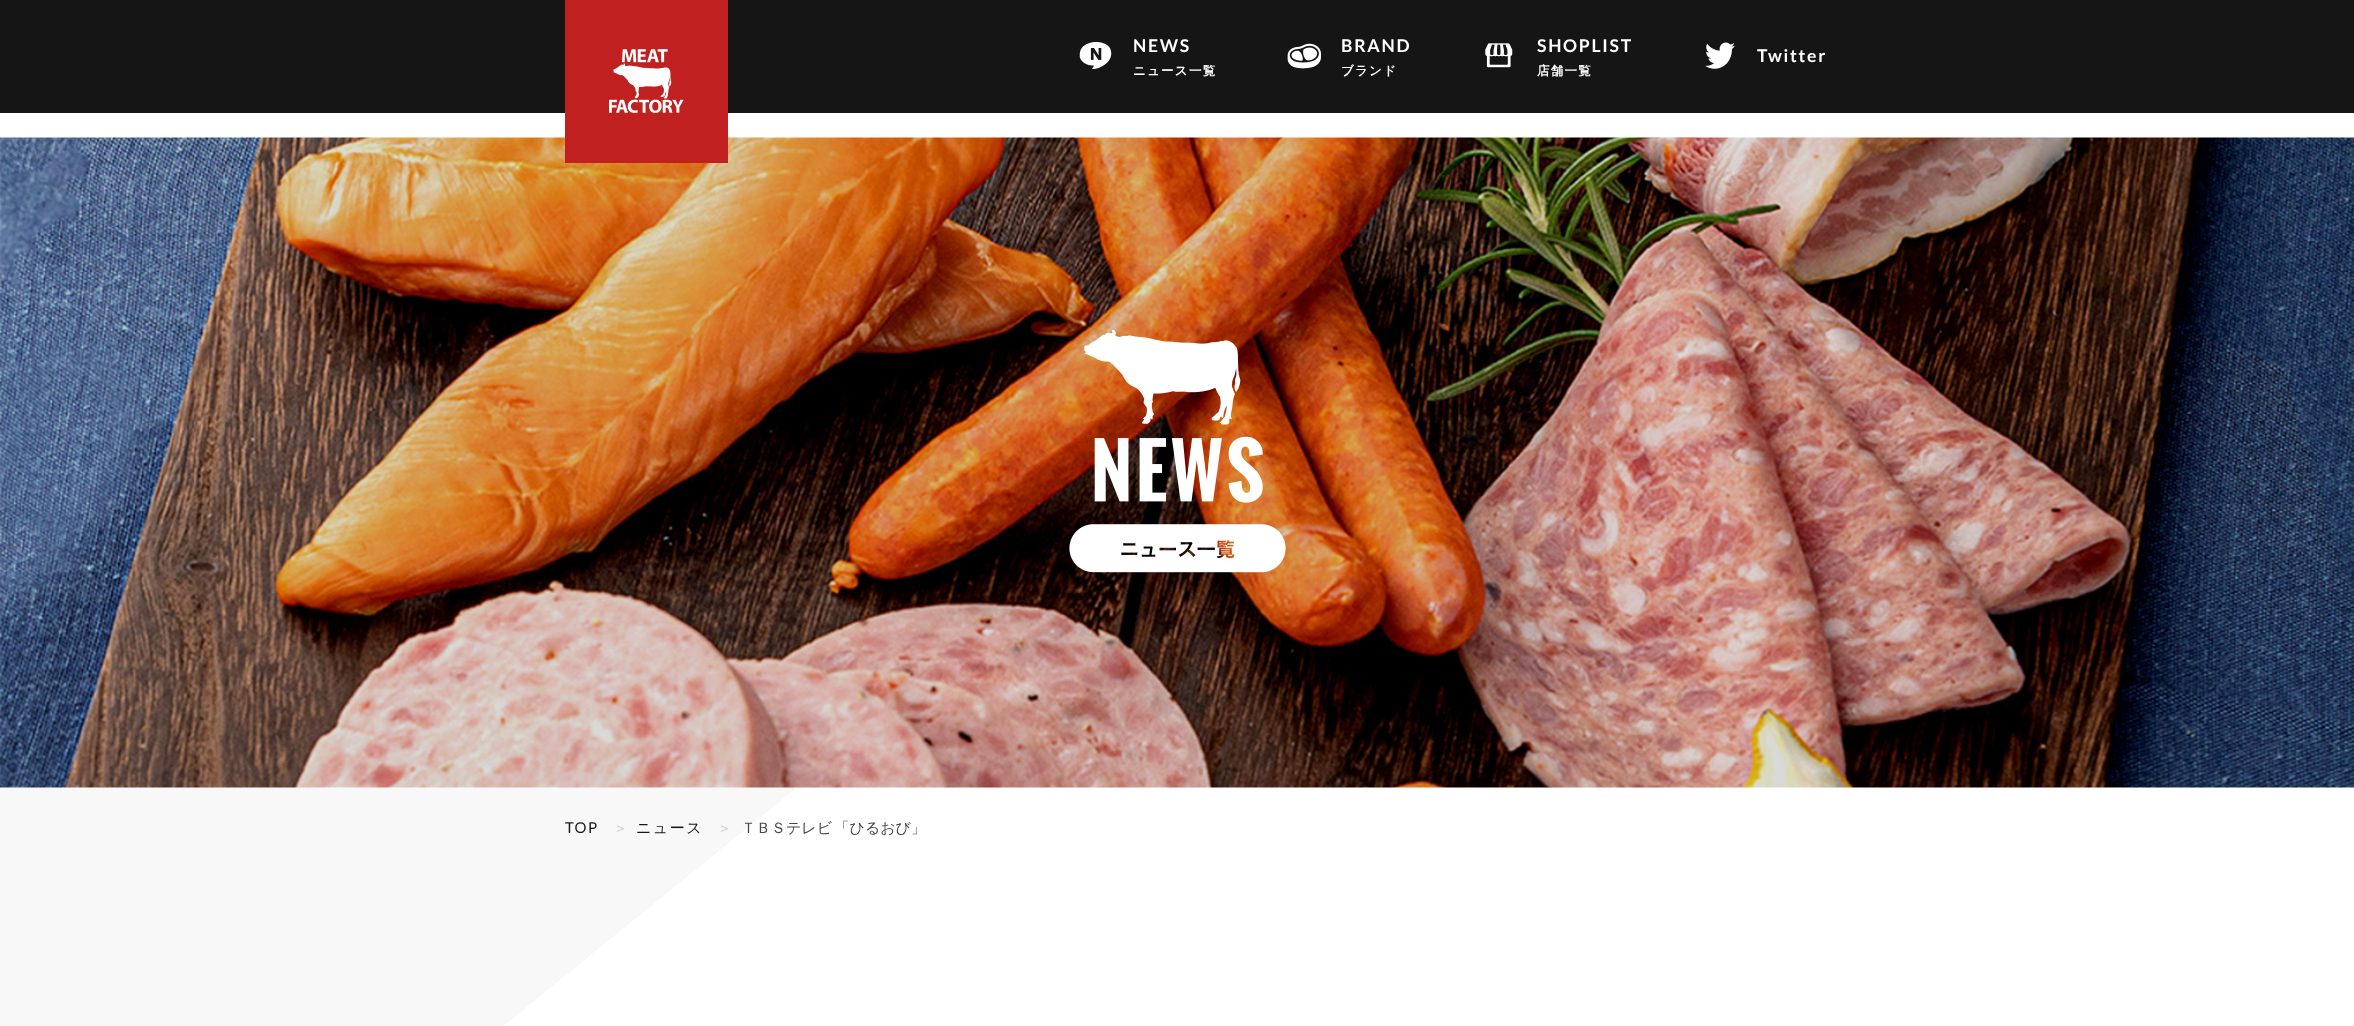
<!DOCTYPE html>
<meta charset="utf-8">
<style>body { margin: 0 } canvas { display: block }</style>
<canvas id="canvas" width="2354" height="1026"></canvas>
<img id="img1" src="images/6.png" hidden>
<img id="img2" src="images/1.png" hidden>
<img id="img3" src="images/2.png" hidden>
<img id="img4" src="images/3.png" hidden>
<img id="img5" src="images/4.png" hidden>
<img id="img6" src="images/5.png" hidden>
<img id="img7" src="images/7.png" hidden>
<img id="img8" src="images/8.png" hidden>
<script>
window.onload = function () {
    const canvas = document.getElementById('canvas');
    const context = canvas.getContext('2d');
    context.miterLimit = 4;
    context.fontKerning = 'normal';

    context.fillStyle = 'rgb(255, 255, 255)';
    context.fillRect(0, 0, 2354, 1026);
    context.fillStyle = 'rgb(21, 21, 21)';
    context.fillRect(0, 0, 2354, 113);
    context.drawImage(document.getElementById('img1'), 0, 137, 2354, 651);
    context.fillStyle = 'rgb(192, 33, 32)';
    context.fillRect(565, 0, 163, 163);
    context.drawImage(document.getElementById('img2'), 609, 49, 75, 64);
    context.drawImage(document.getElementById('img3'), 1079, 41, 33, 28);
    context.drawImage(document.getElementById('img4'), 1287, 43, 34, 26);
    context.drawImage(document.getElementById('img5'), 1485, 43, 28, 25);
    context.drawImage(document.getElementById('img6'), 1705, 42, 30, 27);
    context.drawImage(document.getElementById('img7'), 1069, 329, 217, 244);
    context.drawImage(document.getElementById('img8'), 0, 788, 795, 238);
    context.letterSpacing = '1.75px';
    context.font = 'bold 17.5px Lato';
    context.fillStyle = 'rgb(255, 255, 255)';
    context.fillText('NEWS', 1133, 52);
    context.letterSpacing = '1.25px';
    context.font = 'bold 12.5px WenQuanYi Zen Hei';
    context.fillText('ニュース一覧', 1133, 75);
    context.letterSpacing = '1.75px';
    context.font = 'bold 17.5px Lato';
    context.fillText('BRAND', 1341, 52);
    context.letterSpacing = '1.25px';
    context.font = 'bold 12.5px WenQuanYi Zen Hei';
    context.fillText('ブランド', 1341, 75);
    context.letterSpacing = '1.75px';
    context.font = 'bold 17.5px Lato';
    context.fillText('SHOPLIST', 1537, 52);
    context.letterSpacing = '1.25px';
    context.font = 'bold 12.5px WenQuanYi Zen Hei';
    context.fillText('店舗一覧', 1537, 75);
    context.letterSpacing = '1.75px';
    context.font = 'bold 17.5px Lato';
    context.fillText('Twitter', 1757, 62);
    context.letterSpacing = '1.5px';
    context.font = '15px Lato';
    context.fillStyle = 'rgb(21, 21, 21)';
    context.fillText('TOP', 565, 833);
    context.letterSpacing = '0px';
    context.font = '500 15px WenQuanYi Zen Hei';
    context.fillStyle = 'rgb(207, 201, 201)';
    context.fillText('＞', 613, 833);
    context.letterSpacing = '1.5px';
    context.fillStyle = 'rgb(21, 21, 21)';
    context.fillText('ニュース', 636, 833);
    context.letterSpacing = '0px';
    context.fillStyle = 'rgb(207, 201, 201)';
    context.fillText('＞', 717, 833);
    context.wordSpacing = '-2px';
    context.fillStyle = 'rgb(72, 72, 72)';
    context.fillText('ＴＢＳテレビ 「ひるおび」', 741, 833);
};
</script>
